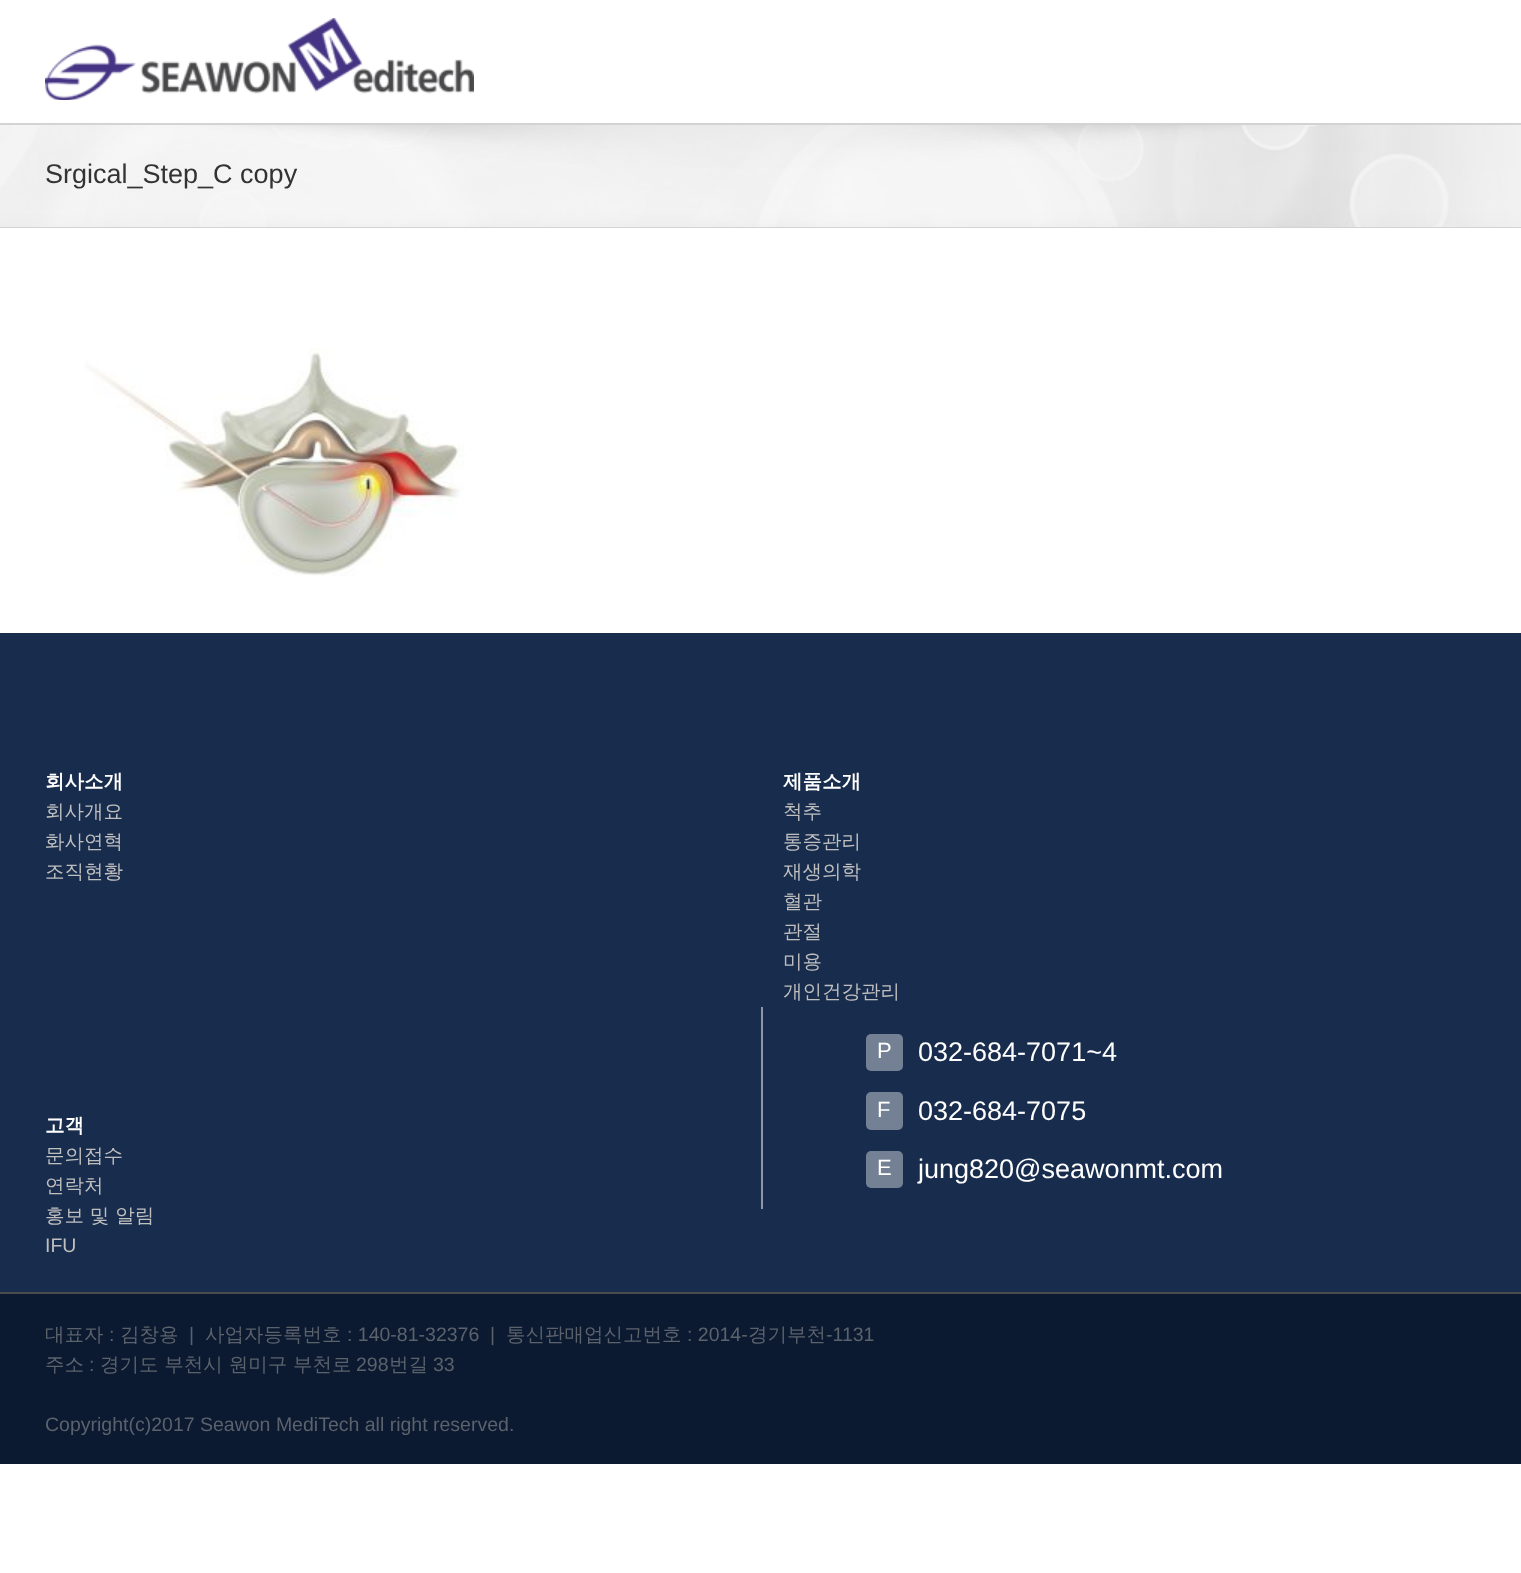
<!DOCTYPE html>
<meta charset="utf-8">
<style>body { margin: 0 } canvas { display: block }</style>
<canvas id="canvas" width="1521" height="1573"></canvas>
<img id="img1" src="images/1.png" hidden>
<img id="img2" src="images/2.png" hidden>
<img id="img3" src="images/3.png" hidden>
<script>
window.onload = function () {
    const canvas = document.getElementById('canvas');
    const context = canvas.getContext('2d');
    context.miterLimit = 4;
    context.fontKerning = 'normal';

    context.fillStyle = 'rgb(255, 255, 255)';
    context.fillRect(0, 0, 1521, 1573);
    context.drawImage(document.getElementById('img1'), 45, 18, 429, 82);
    context.fillStyle = 'rgb(246, 246, 246)';
    context.fillRect(0, 125, 1521, 102);
    context.drawImage(document.getElementById('img2'), 0, 125, 1521, 102);
    context.fillStyle = 'rgb(210, 211, 212)';
    context.fillRect(0, 123, 1521, 2);
    context.fillRect(0, 227, 1521, 1);
    context.drawImage(document.getElementById('img3'), 85, 348, 380, 228);
    context.fillStyle = 'rgb(24, 44, 77)';
    context.fillRect(0, 633, 1521, 659);
    context.fillStyle = 'rgb(140, 150, 166)';
    context.fillRect(761, 1007, 2, 202);
    context.fillStyle = 'rgb(116, 128, 148)';
    context.beginPath();
    context.roundRect(866, 1034, 37, 37, 5);
    context.fill();
    context.beginPath();
    context.roundRect(866, 1092, 37, 38, 5);
    context.fill();
    context.beginPath();
    context.roundRect(866, 1151, 37, 37, 5);
    context.fill();
    context.fillStyle = 'rgb(11, 25, 49)';
    context.fillRect(0, 1294, 1521, 170);
    context.fillStyle = 'rgb(75, 76, 77)';
    context.fillRect(0, 1292, 1521, 2);
    context.font = '27px Liberation Sans';
    context.fillStyle = 'rgb(51, 51, 51)';
    context.fillText('Srgical_Step_C copy', 45, 183);
    context.font = 'bold 19.5px WenQuanYi Zen Hei';
    context.fillStyle = 'rgb(255, 255, 255)';
    context.fillText('회사소개', 45, 788);
    context.font = '500 19.5px WenQuanYi Zen Hei';
    context.fillStyle = 'rgb(191, 191, 191)';
    context.fillText('회사개요', 45, 818);
    context.fillText('화사연혁', 45, 848);
    context.fillText('조직현황', 45, 878);
    context.font = 'bold 19.5px WenQuanYi Zen Hei';
    context.fillStyle = 'rgb(255, 255, 255)';
    context.fillText('제품소개', 783, 788);
    context.font = '500 19.5px WenQuanYi Zen Hei';
    context.fillStyle = 'rgb(191, 191, 191)';
    context.fillText('척추', 783, 818);
    context.fillText('통증관리', 783, 848);
    context.fillText('재생의학', 783, 878);
    context.fillText('혈관', 783, 908);
    context.fillText('관절', 783, 938);
    context.fillText('미용', 783, 968);
    context.fillText('개인건강관리', 783, 998);
    context.font = 'bold 19.5px WenQuanYi Zen Hei';
    context.fillStyle = 'rgb(255, 255, 255)';
    context.fillText('고객', 45, 1132);
    context.font = '500 19.5px WenQuanYi Zen Hei';
    context.fillStyle = 'rgb(191, 191, 191)';
    context.fillText('문의접수', 45, 1162);
    context.fillText('연락처', 45, 1192);
    context.fillText('홍보 및 알림', 45, 1222);
    context.font = '19.5px Liberation Sans';
    context.fillText('IFU', 45, 1252);
    context.font = '22px Liberation Sans';
    context.fillStyle = 'rgb(255, 255, 255)';
    context.fillText('P', 877, 1058);
    context.font = '27px Liberation Sans';
    context.fillText('032-684-7071~4', 918, 1061);
    context.font = '22px Liberation Sans';
    context.fillText('F', 877, 1117);
    context.font = '27px Liberation Sans';
    context.fillText('032-684-7075', 918, 1120);
    context.font = '22px Liberation Sans';
    context.fillText('E', 877, 1175);
    context.font = '27px Liberation Sans';
    context.fillText('jung820@seawonmt.com', 918, 1178);
    context.font = '500 19.5px WenQuanYi Zen Hei';
    context.fillStyle = 'rgb(91, 98, 108)';
    context.fillText('대표자', 45, 1341);
    context.font = '19.5px Liberation Sans';
    context.fillText(':', 109, 1341);
    context.font = '500 19.5px WenQuanYi Zen Hei';
    context.fillText('김창용', 120, 1341);
    context.font = '19.5px Liberation Sans';
    context.fillText('|', 189, 1341);
    context.font = '500 19.5px WenQuanYi Zen Hei';
    context.fillText('사업자등록번호', 205, 1341);
    context.font = '19.5px Liberation Sans';
    context.fillText(': 140-81-32376  |', 347, 1341);
    context.font = '500 19.5px WenQuanYi Zen Hei';
    context.fillText('통신판매업신고번호', 506, 1341);
    context.font = '19.5px Liberation Sans';
    context.fillText(': 2014-', 687, 1341);
    context.font = '500 19.5px WenQuanYi Zen Hei';
    context.fillText('경기부천', 748, 1341);
    context.font = '19.5px Liberation Sans';
    context.fillText('-1131', 826, 1341);
    context.font = '500 19.5px WenQuanYi Zen Hei';
    context.fillText('주소', 45, 1371);
    context.font = '19.5px Liberation Sans';
    context.fillText(':', 89, 1371);
    context.font = '500 19.5px WenQuanYi Zen Hei';
    context.fillText('경기도 부천시 원미구 부천로', 100, 1371);
    context.font = '19.5px Liberation Sans';
    context.fillText('298', 356, 1371);
    context.font = '500 19.5px WenQuanYi Zen Hei';
    context.fillText('번길', 389, 1371);
    context.font = '19.5px Liberation Sans';
    context.fillText('33', 433, 1371);
    context.fillText('Copyright(c)2017 Seawon MediTech all right reserved.', 45, 1431);
};
</script>
